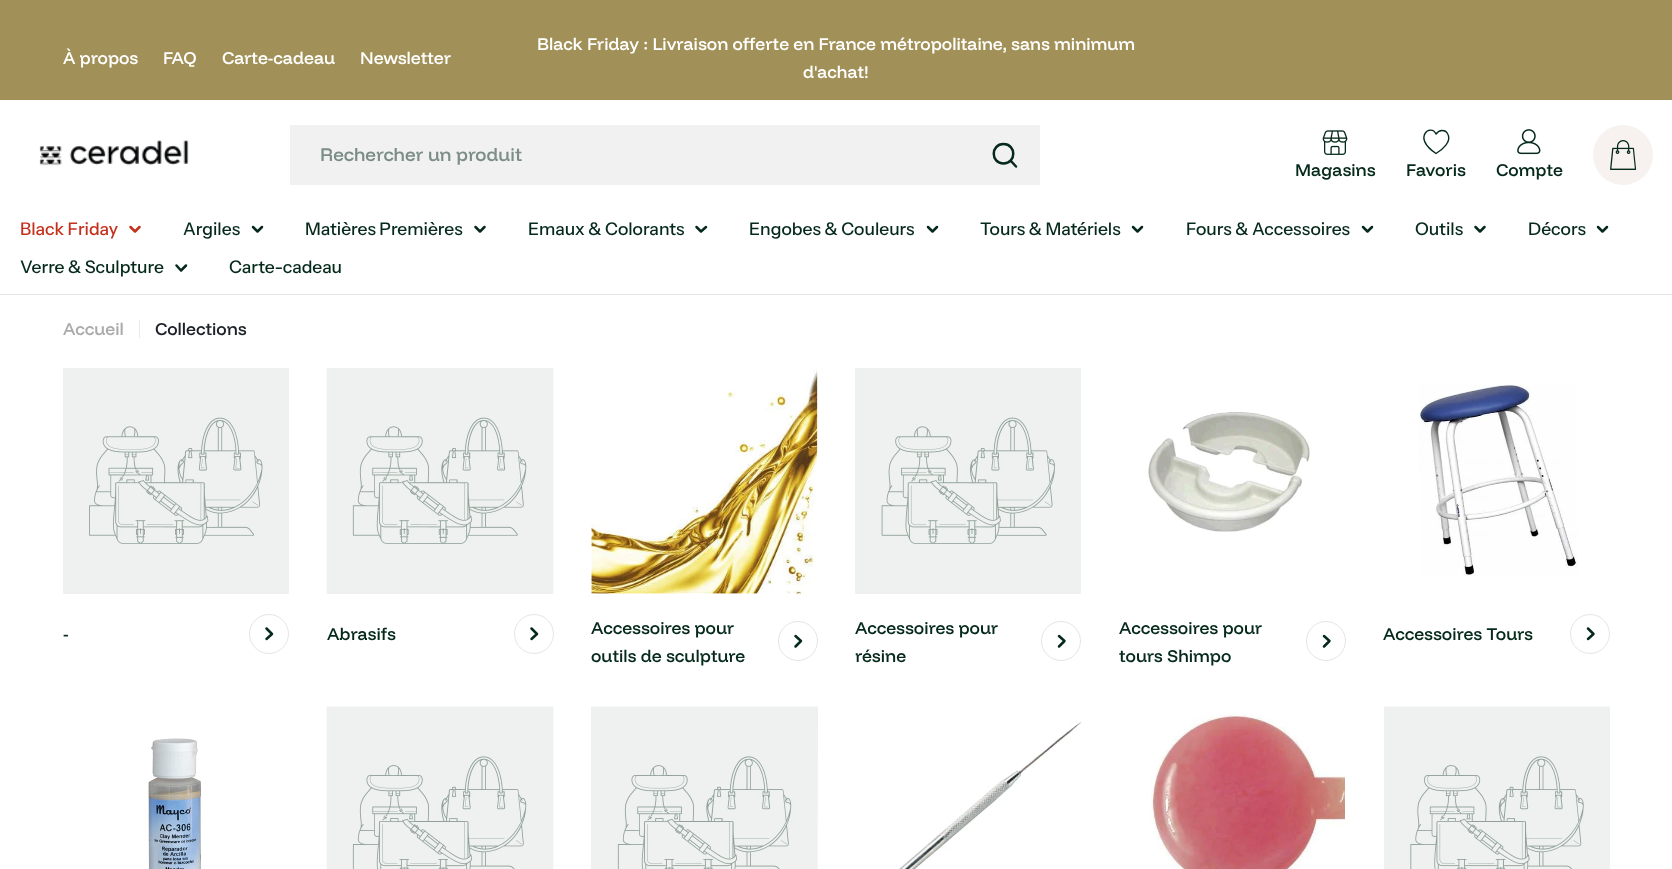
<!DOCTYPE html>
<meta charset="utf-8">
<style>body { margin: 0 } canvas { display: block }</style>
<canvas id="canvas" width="1672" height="869"></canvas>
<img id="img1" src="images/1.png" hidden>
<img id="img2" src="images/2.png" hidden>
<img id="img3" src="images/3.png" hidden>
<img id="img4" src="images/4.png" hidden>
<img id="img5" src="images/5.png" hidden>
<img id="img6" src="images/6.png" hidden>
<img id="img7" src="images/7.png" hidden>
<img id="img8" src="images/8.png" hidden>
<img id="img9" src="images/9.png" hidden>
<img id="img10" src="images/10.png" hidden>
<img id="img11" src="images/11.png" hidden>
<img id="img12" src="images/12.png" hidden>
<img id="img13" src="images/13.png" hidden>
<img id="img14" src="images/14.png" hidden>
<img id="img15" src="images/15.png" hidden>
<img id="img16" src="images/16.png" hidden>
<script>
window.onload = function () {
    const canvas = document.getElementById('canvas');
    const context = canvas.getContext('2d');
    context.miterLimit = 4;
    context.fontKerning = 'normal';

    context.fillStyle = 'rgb(255, 255, 255)';
    context.fillRect(0, 0, 1672, 869);
    context.fillStyle = 'rgb(161, 144, 87)';
    context.fillRect(0, 0, 1672, 100);
    context.drawImage(document.getElementById('img1'), 39, 140, 150, 26);
    context.fillStyle = 'rgb(241, 241, 241)';
    context.fillRect(290, 125, 750, 60);
    context.beginPath();
    context.moveTo(1003.5, 163.5);
    context.bezierCurveTo(1016.5, 163.5, 1016.5, 144, 1003.5, 144);
    context.bezierCurveTo(990.5, 144, 990.5, 163.5, 1003.5, 163.5);
    context.closePath();
    context.moveTo(1010.5, 160.5);
    context.lineTo(1016, 166.5);
    context.strokeStyle = 'rgb(5, 41, 27)';
    context.lineWidth = 2.5;
    context.lineCap = 'round';
    context.lineJoin = 'round';
    context.stroke();
    context.drawImage(document.getElementById('img2'), 1322, 130, 26, 25);
    context.beginPath();
    context.moveTo(1442, 130.5);
    context.bezierCurveTo(1439.5, 130.5, 1437.5, 132, 1436, 134);
    context.bezierCurveTo(1431, 123, 1411.5, 137.5, 1436, 153.5);
    context.bezierCurveTo(1442, 150, 1452.5, 141.5, 1447.5, 133.5);
    context.bezierCurveTo(1446.5, 131.5, 1444.5, 130.5, 1442, 130.5);
    context.closePath();
    context.lineWidth = 1.4;
    context.stroke();
    context.drawImage(document.getElementById('img3'), 1517, 129, 24, 26);
    context.fillStyle = 'rgb(247, 242, 239)';
    context.beginPath();
    context.arc(1623, 155, 30, 0, 2 * Math.PI);
    context.fill();
    context.drawImage(document.getElementById('img4'), 1610, 140, 27, 30);
    context.fillStyle = 'rgb(229, 229, 229)';
    context.fillRect(0, 294, 1672, 1);
    context.beginPath();
    context.moveTo(139.5, 227);
    context.lineTo(135, 231.5);
    context.lineTo(130.5, 227);
    context.strokeStyle = 'rgb(196, 48, 28)';
    context.lineWidth = 2.5;
    context.stroke();
    context.beginPath();
    context.moveTo(262, 227);
    context.lineTo(257.5, 231.5);
    context.lineTo(253, 227);
    context.strokeStyle = 'rgb(5, 41, 27)';
    context.stroke();
    context.beginPath();
    context.moveTo(484.5, 227);
    context.lineTo(480, 231.5);
    context.lineTo(475.5, 227);
    context.stroke();
    context.beginPath();
    context.moveTo(706, 227);
    context.lineTo(701, 231.5);
    context.lineTo(696.5, 227);
    context.stroke();
    context.beginPath();
    context.moveTo(937, 227);
    context.lineTo(932.5, 231.5);
    context.lineTo(928, 227);
    context.stroke();
    context.beginPath();
    context.moveTo(1142, 227);
    context.lineTo(1137.5, 231.5);
    context.lineTo(1133, 227);
    context.stroke();
    context.beginPath();
    context.moveTo(1372, 227);
    context.lineTo(1367.5, 231.5);
    context.lineTo(1363, 227);
    context.stroke();
    context.beginPath();
    context.moveTo(1484.5, 227);
    context.lineTo(1480, 231.5);
    context.lineTo(1475.5, 227);
    context.stroke();
    context.beginPath();
    context.moveTo(1607, 227);
    context.lineTo(1602.5, 231.5);
    context.lineTo(1598, 227);
    context.stroke();
    context.beginPath();
    context.moveTo(186, 265.5);
    context.lineTo(181, 270.5);
    context.lineTo(176.5, 265.5);
    context.stroke();
    context.fillStyle = 'rgb(230, 234, 232)';
    context.fillRect(139, 320, 1, 18);
    context.save();
    context.beginPath();
    context.rect(63, 368, 226, 226);
    context.clip();
    context.fillStyle = 'rgb(238, 241, 239)';
    context.beginPath();
    context.moveTo(63, 367);
    context.lineTo(289, 367);
    context.lineTo(289, 594);
    context.lineTo(62, 594);
    context.closePath();
    context.fill();
    context.restore();
    context.drawImage(document.getElementById('img5'), 89, 417, 174, 127);
    context.beginPath();
    context.arc(269, 634, 19.5, 0, 2 * Math.PI);
    context.strokeStyle = 'rgb(229, 229, 229)';
    context.lineWidth = 1;
    context.stroke();
    context.beginPath();
    context.moveTo(266.5, 628.5);
    context.lineTo(272, 634);
    context.lineTo(266.5, 639);
    context.strokeStyle = 'rgb(5, 41, 27)';
    context.lineWidth = 2.5;
    context.stroke();
    context.fillStyle = 'rgb(248, 249, 248)';
    context.fillRect(326, 368, 228, 226);
    context.fillStyle = 'rgb(238, 241, 239)';
    context.fillRect(327, 368, 226, 226);
    context.drawImage(document.getElementById('img6'), 352, 417, 175, 127);
    context.beginPath();
    context.arc(534, 634, 19.5, 0, 2 * Math.PI);
    context.strokeStyle = 'rgb(229, 229, 229)';
    context.lineWidth = 1;
    context.stroke();
    context.beginPath();
    context.moveTo(531.5, 628.5);
    context.lineTo(537, 634);
    context.lineTo(531.5, 639);
    context.strokeStyle = 'rgb(5, 41, 27)';
    context.lineWidth = 2.5;
    context.stroke();
    context.drawImage(document.getElementById('img7'), 591, 368, 227, 226);
    context.beginPath();
    context.arc(798, 641, 19.5, 0, 2 * Math.PI);
    context.strokeStyle = 'rgb(229, 229, 229)';
    context.lineWidth = 1;
    context.stroke();
    context.beginPath();
    context.moveTo(795.5, 636);
    context.lineTo(801, 641);
    context.lineTo(795.5, 646.5);
    context.strokeStyle = 'rgb(5, 41, 27)';
    context.lineWidth = 2.5;
    context.stroke();
    context.fillRect(855, 368, 226, 226);
    context.drawImage(document.getElementById('img8'), 881, 417, 174, 127);
    context.beginPath();
    context.arc(1061, 641, 19.5, 0, 2 * Math.PI);
    context.strokeStyle = 'rgb(229, 229, 229)';
    context.lineWidth = 1;
    context.stroke();
    context.beginPath();
    context.moveTo(1059, 636);
    context.lineTo(1064.5, 641);
    context.lineTo(1059, 646.5);
    context.strokeStyle = 'rgb(5, 41, 27)';
    context.lineWidth = 2.5;
    context.stroke();
    context.drawImage(document.getElementById('img9'), 1147, 412, 164, 120);
    context.beginPath();
    context.arc(1326, 641, 19.5, 0, 2 * Math.PI);
    context.strokeStyle = 'rgb(229, 229, 229)';
    context.lineWidth = 1;
    context.stroke();
    context.beginPath();
    context.moveTo(1324, 636);
    context.lineTo(1329.5, 641);
    context.lineTo(1324, 646.5);
    context.strokeStyle = 'rgb(5, 41, 27)';
    context.lineWidth = 2.5;
    context.stroke();
    context.drawImage(document.getElementById('img10'), 1418, 384, 160, 192);
    context.beginPath();
    context.arc(1590, 634, 19.5, 0, 2 * Math.PI);
    context.strokeStyle = 'rgb(229, 229, 229)';
    context.lineWidth = 1;
    context.stroke();
    context.beginPath();
    context.moveTo(1588, 628.5);
    context.lineTo(1593.5, 634);
    context.lineTo(1588, 639);
    context.strokeStyle = 'rgb(5, 41, 27)';
    context.lineWidth = 2.5;
    context.stroke();
    context.drawImage(document.getElementById('img11'), 148, 738, 54, 131);
    context.fillStyle = 'rgb(248, 249, 248)';
    context.fillRect(326, 706, 228, 163);
    context.fillStyle = 'rgb(238, 241, 239)';
    context.fillRect(327, 707, 226, 162);
    context.drawImage(document.getElementById('img12'), 352, 756, 175, 113);
    context.fillStyle = 'rgb(248, 249, 248)';
    context.fillRect(591, 706, 227, 163);
    context.fillStyle = 'rgb(238, 241, 239)';
    context.beginPath();
    context.moveTo(591, 707);
    context.lineTo(818, 707);
    context.lineTo(817, 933);
    context.lineTo(591, 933);
    context.closePath();
    context.fill();
    context.drawImage(document.getElementById('img13'), 617, 756, 175, 113);
    context.drawImage(document.getElementById('img14'), 899, 722, 182, 147);
    context.drawImage(document.getElementById('img15'), 1150, 713, 195, 156);
    context.fillStyle = 'rgb(248, 249, 248)';
    context.fillRect(1384, 706, 226, 1);
    context.fillStyle = 'rgb(238, 241, 239)';
    context.fillRect(1384, 707, 226, 162);
    context.drawImage(document.getElementById('img16'), 1410, 756, 174, 113);
    context.font = '500 17.5px Funnel Display';
    context.fillStyle = 'rgb(255, 255, 255)';
    context.fillText('À propos', 63, 64);
    context.fillText('FAQ', 163, 64);
    context.fillText('Carte-cadeau', 222, 64);
    context.fillText('Newsletter', 360, 64);
    context.fillText('Black Friday : Livraison offerte en France métropolitaine, sans minimum', 537, 50);
    context.fillText('d\'achat!', 803, 78);
    context.font = '500 18.75px Funnel Display';
    context.fillStyle = 'rgb(123, 141, 134)';
    context.fillText('Rechercher un produit', 320, 161);
    context.font = '500 17.5px Funnel Display';
    context.fillStyle = 'rgb(5, 41, 27)';
    context.fillText('Magasins', 1295, 176);
    context.fillText('Favoris', 1406, 176);
    context.fillText('Compte', 1496, 176);
    context.font = '500 17.5px Instrument Sans';
    context.fillStyle = 'rgb(196, 48, 28)';
    context.fillText('Black Friday', 20, 235);
    context.fillStyle = 'rgb(5, 41, 27)';
    context.fillText('Argiles', 183, 235);
    context.fillText('Matières Premières', 305, 235);
    context.fillText('Emaux & Colorants', 528, 235);
    context.fillText('Engobes & Couleurs', 749, 235);
    context.fillText('Tours & Matériels', 980, 235);
    context.fillText('Fours & Accessoires', 1186, 235);
    context.fillText('Outils', 1415, 235);
    context.fillText('Décors', 1528, 235);
    context.fillText('Verre & Sculpture', 20, 273);
    context.fillText('Carte-cadeau', 229, 273);
    context.font = '500 17.5px Funnel Display';
    context.fillStyle = 'rgb(170, 170, 170)';
    context.fillText('Accueil', 63, 335);
    context.fillStyle = 'rgb(28, 33, 40)';
    context.fillText('Collections', 155, 335);
    context.fillStyle = 'rgb(5, 41, 27)';
    context.fillText('-', 63, 640);
    context.fillText('Abrasifs', 327, 640);
    context.fillText('Accessoires pour', 591, 634);
    context.fillText('outils de sculpture', 591, 662);
    context.fillText('Accessoires pour', 855, 634);
    context.fillText('résine', 855, 662);
    context.fillText('Accessoires pour', 1119, 634);
    context.fillText('tours Shimpo', 1119, 662);
    context.fillText('Accessoires Tours', 1383, 640);
};
</script>
